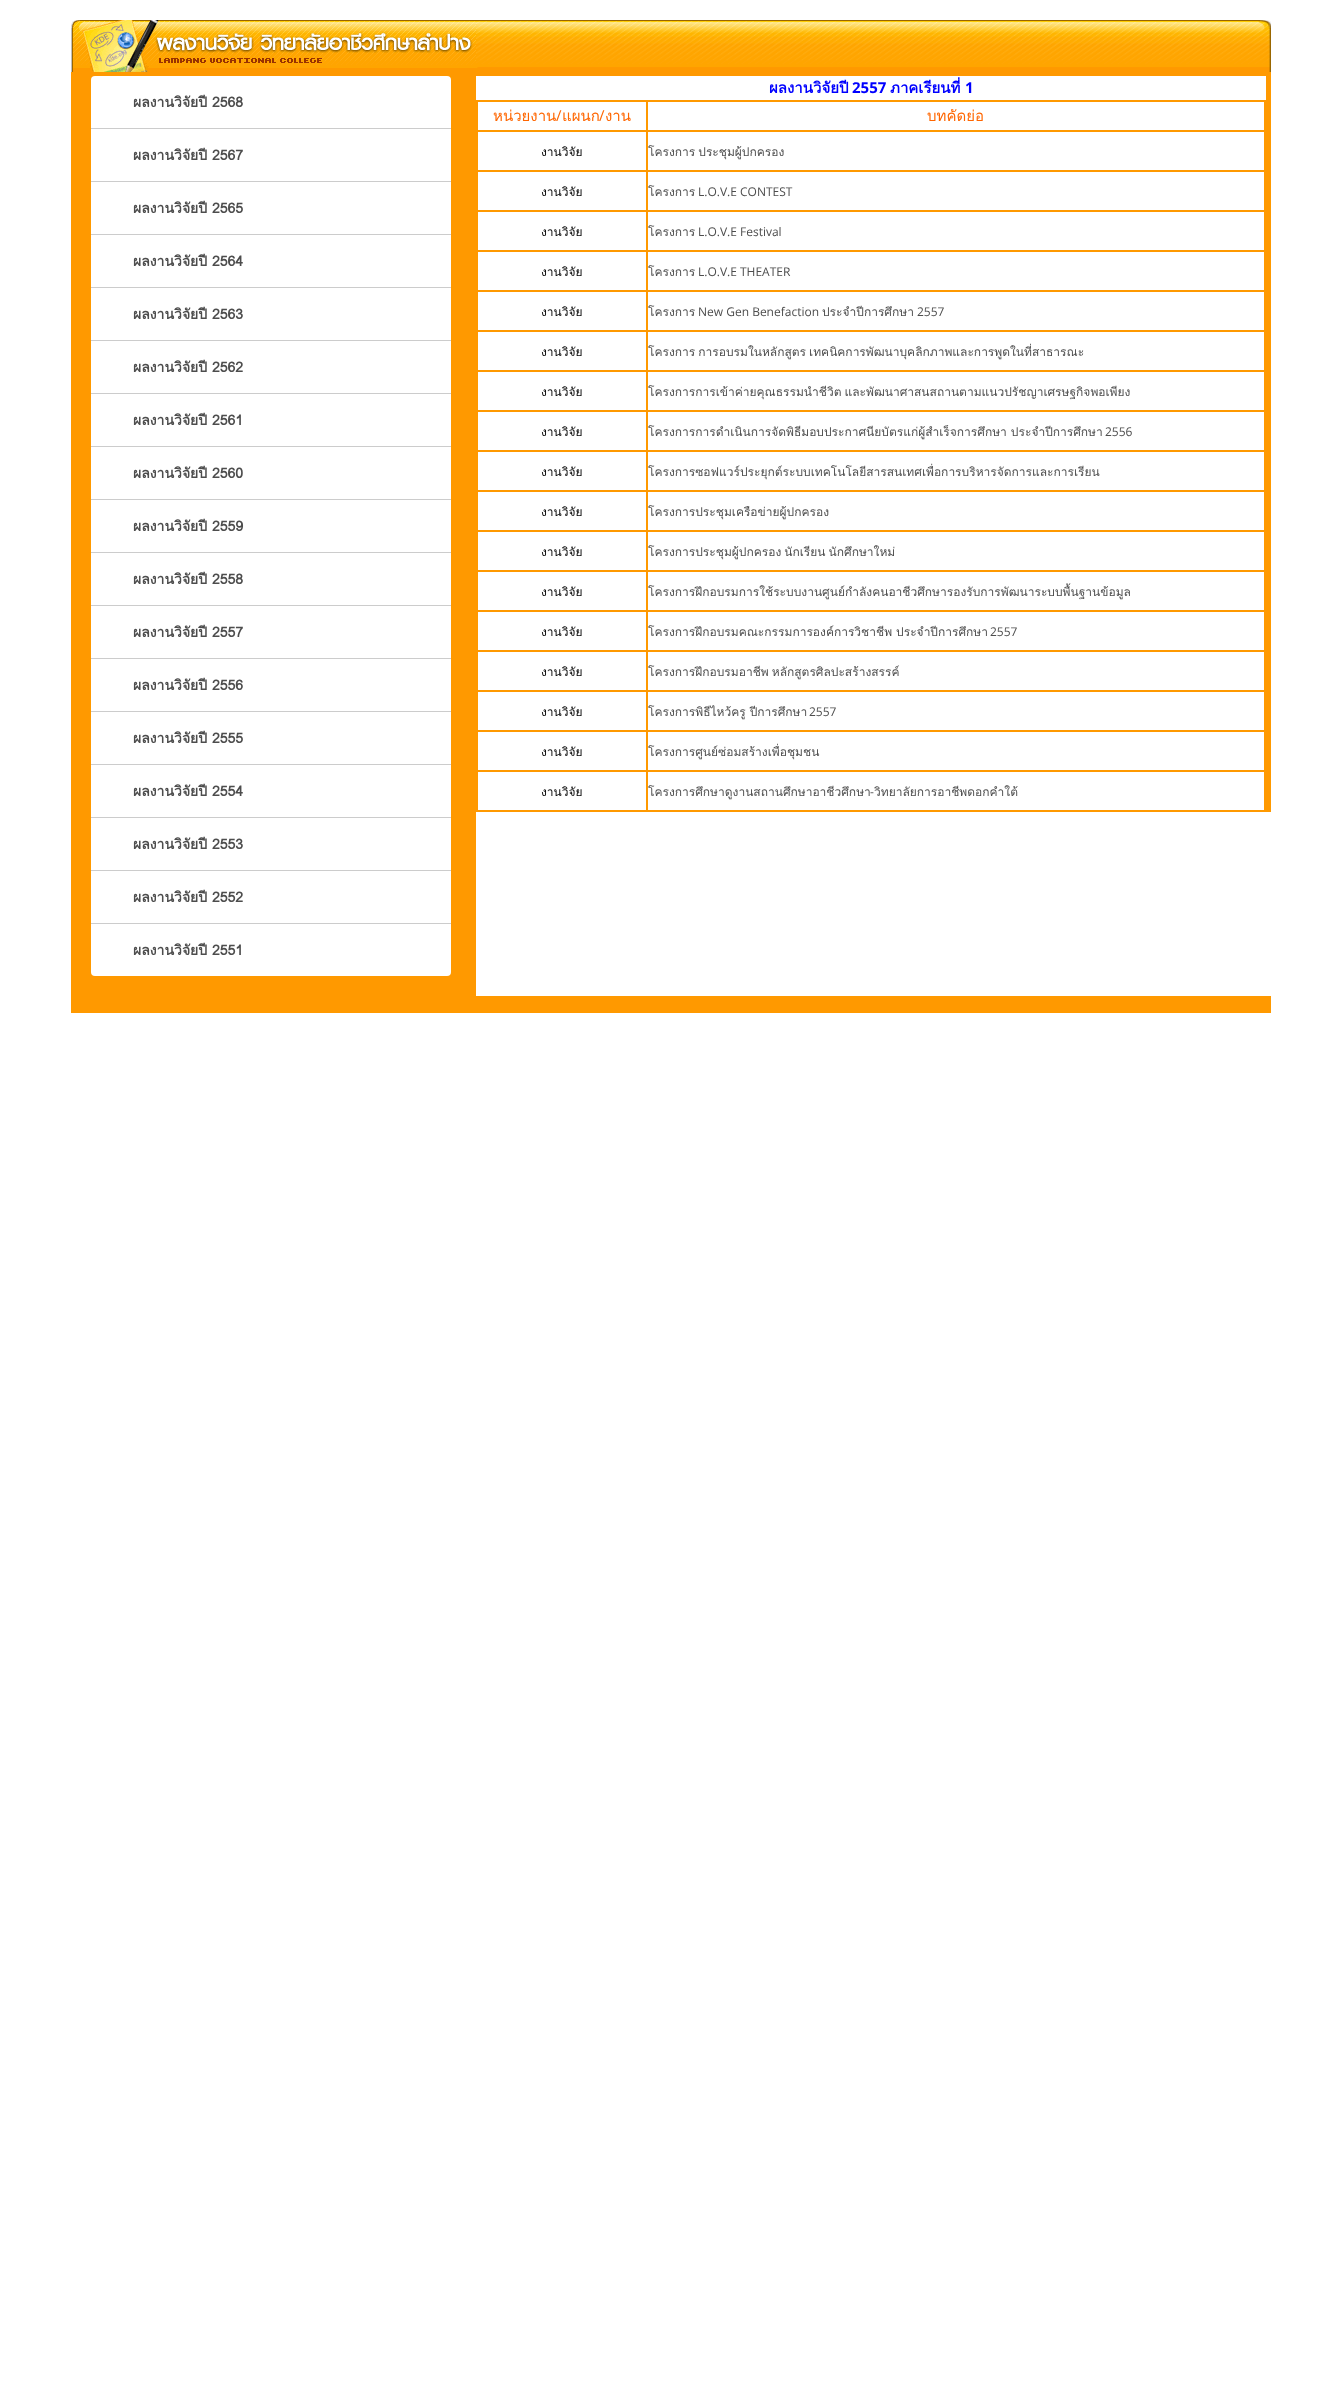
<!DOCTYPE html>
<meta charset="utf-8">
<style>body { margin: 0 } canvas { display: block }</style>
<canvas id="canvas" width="1342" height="2389"></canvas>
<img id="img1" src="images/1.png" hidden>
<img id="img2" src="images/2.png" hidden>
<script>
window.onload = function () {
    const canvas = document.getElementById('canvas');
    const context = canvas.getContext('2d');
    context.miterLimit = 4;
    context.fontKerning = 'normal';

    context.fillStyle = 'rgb(255, 255, 255)';
    context.fillRect(0, 0, 1342, 2389);
    context.fillStyle = 'rgb(255, 153, 0)';
    context.fillRect(71, 72, 1200, 4);
    context.drawImage(document.getElementById('img1'), 71, 20, 405, 52);
    context.drawImage(document.getElementById('img2'), 476, 20, 795, 52);
    context.fillRect(71, 76, 405, 937);
    context.fillStyle = 'rgb(255, 255, 255)';
    context.beginPath();
    context.roundRect(91, 76, 360, 900, 4);
    context.fill();
    context.fillStyle = 'rgb(204, 204, 204)';
    context.fillRect(91, 128, 360, 1);
    context.fillRect(91, 181, 360, 1);
    context.fillRect(91, 234, 360, 1);
    context.fillRect(91, 287, 360, 1);
    context.fillRect(91, 340, 360, 1);
    context.fillRect(91, 393, 360, 1);
    context.fillRect(91, 446, 360, 1);
    context.fillRect(91, 499, 360, 1);
    context.fillRect(91, 552, 360, 1);
    context.fillRect(91, 605, 360, 1);
    context.fillRect(91, 658, 360, 1);
    context.fillRect(91, 711, 360, 1);
    context.fillRect(91, 764, 360, 1);
    context.fillRect(91, 817, 360, 1);
    context.fillRect(91, 870, 360, 1);
    context.fillRect(91, 923, 360, 1);
    context.strokeStyle = 'rgb(255, 153, 0)';
    context.strokeRect(476.5, 100.5, 789, 711);
    context.strokeRect(477.5, 101.5, 169, 29);
    context.strokeRect(647.5, 101.5, 617, 29);
    context.strokeRect(477.5, 131.5, 169, 39);
    context.strokeRect(647.5, 131.5, 617, 39);
    context.strokeRect(477.5, 171.5, 169, 39);
    context.strokeRect(647.5, 171.5, 617, 39);
    context.strokeRect(477.5, 211.5, 169, 39);
    context.strokeRect(647.5, 211.5, 617, 39);
    context.strokeRect(477.5, 251.5, 169, 39);
    context.strokeRect(647.5, 251.5, 617, 39);
    context.strokeRect(477.5, 291.5, 169, 39);
    context.strokeRect(647.5, 291.5, 617, 39);
    context.strokeRect(477.5, 331.5, 169, 39);
    context.strokeRect(647.5, 331.5, 617, 39);
    context.strokeRect(477.5, 371.5, 169, 39);
    context.strokeRect(647.5, 371.5, 617, 39);
    context.strokeRect(477.5, 411.5, 169, 39);
    context.strokeRect(647.5, 411.5, 617, 39);
    context.strokeRect(477.5, 451.5, 169, 39);
    context.strokeRect(647.5, 451.5, 617, 39);
    context.strokeRect(477.5, 491.5, 169, 39);
    context.strokeRect(647.5, 491.5, 617, 39);
    context.strokeRect(477.5, 531.5, 169, 39);
    context.strokeRect(647.5, 531.5, 617, 39);
    context.strokeRect(477.5, 571.5, 169, 39);
    context.strokeRect(647.5, 571.5, 617, 39);
    context.strokeRect(477.5, 611.5, 169, 39);
    context.strokeRect(647.5, 611.5, 617, 39);
    context.strokeRect(477.5, 651.5, 169, 39);
    context.strokeRect(647.5, 651.5, 617, 39);
    context.strokeRect(477.5, 691.5, 169, 39);
    context.strokeRect(647.5, 691.5, 617, 39);
    context.strokeRect(477.5, 731.5, 169, 39);
    context.strokeRect(647.5, 731.5, 617, 39);
    context.strokeRect(477.5, 771.5, 169, 39);
    context.strokeRect(647.5, 771.5, 617, 39);
    context.fillStyle = 'rgb(255, 153, 0)';
    context.fillRect(1266, 76, 5, 736);
    context.fillRect(476, 996, 795, 17);
    context.font = 'bold 14px Loma';
    context.fillStyle = 'rgb(77, 77, 77)';
    context.fillText('ผลงานวิจัยปี 2568', 133, 107);
    context.fillText('ผลงานวิจัยปี 2567', 133, 160);
    context.fillText('ผลงานวิจัยปี 2565', 133, 213);
    context.fillText('ผลงานวิจัยปี 2564', 133, 266);
    context.fillText('ผลงานวิจัยปี 2563', 133, 319);
    context.fillText('ผลงานวิจัยปี 2562', 133, 372);
    context.fillText('ผลงานวิจัยปี 2561', 133, 425);
    context.fillText('ผลงานวิจัยปี 2560', 133, 478);
    context.fillText('ผลงานวิจัยปี 2559', 133, 531);
    context.fillText('ผลงานวิจัยปี 2558', 133, 584);
    context.fillText('ผลงานวิจัยปี 2557', 133, 637);
    context.fillText('ผลงานวิจัยปี 2556', 133, 690);
    context.fillText('ผลงานวิจัยปี 2555', 133, 743);
    context.fillText('ผลงานวิจัยปี 2554', 133, 796);
    context.fillText('ผลงานวิจัยปี 2553', 133, 849);
    context.fillText('ผลงานวิจัยปี 2552', 133, 902);
    context.fillText('ผลงานวิจัยปี 2551', 133, 955);
    context.font = 'bold 15px Loma';
    context.fillStyle = 'rgb(0, 0, 255)';
    context.fillText('ผลงานวิจัยปี', 769, 93);
    context.font = 'bold 15px Open Sans';
    context.fillText('2557', 852, 93);
    context.font = 'bold 15px Loma';
    context.fillText('ภาคเรียนที่', 890, 93);
    context.font = 'bold 15px Open Sans';
    context.fillText('1', 965, 93);
    context.font = '15px Loma';
    context.fillStyle = 'rgb(255, 102, 0)';
    context.fillText('หน่วยงาน', 493, 121);
    context.font = '15px Open Sans';
    context.fillText('/', 556, 121);
    context.font = '15px Loma';
    context.fillText('แผนก', 562, 121);
    context.font = '15px Open Sans';
    context.fillText('/', 599, 121);
    context.font = '15px Loma';
    context.fillText('งาน', 605, 121);
    context.fillText('บทคัดย่อ', 927, 121);
    context.font = '12px Loma';
    context.fillStyle = 'rgb(0, 0, 0)';
    context.fillText('งานวิจัย', 541, 156);
    context.wordSpacing = '-1px';
    context.fillStyle = 'rgb(77, 77, 77)';
    context.fillText('โครงการ ประชุมผู้ปกครอง', 648, 156);
    context.wordSpacing = '0px';
    context.fillStyle = 'rgb(0, 0, 0)';
    context.fillText('งานวิจัย', 541, 196);
    context.fillStyle = 'rgb(77, 77, 77)';
    context.fillText('โครงการ', 648, 196);
    context.font = '12px Open Sans';
    context.fillText('L.O.V.E CONTEST', 698, 196);
    context.font = '12px Loma';
    context.fillStyle = 'rgb(0, 0, 0)';
    context.fillText('งานวิจัย', 541, 236);
    context.fillStyle = 'rgb(77, 77, 77)';
    context.fillText('โครงการ', 648, 236);
    context.font = '12px Open Sans';
    context.fillText('L.O.V.E Festival', 698, 236);
    context.font = '12px Loma';
    context.fillStyle = 'rgb(0, 0, 0)';
    context.fillText('งานวิจัย', 541, 276);
    context.fillStyle = 'rgb(77, 77, 77)';
    context.fillText('โครงการ', 648, 276);
    context.font = '12px Open Sans';
    context.fillText('L.O.V.E THEATER', 698, 276);
    context.font = '12px Loma';
    context.fillStyle = 'rgb(0, 0, 0)';
    context.fillText('งานวิจัย', 541, 316);
    context.fillStyle = 'rgb(77, 77, 77)';
    context.fillText('โครงการ', 648, 316);
    context.font = '12px Open Sans';
    context.fillText('New Gen Benefaction', 698, 316);
    context.font = '12px Loma';
    context.fillText('ประจำปีการศึกษา', 822, 316);
    context.font = '12px Open Sans';
    context.fillText('2557', 917, 316);
    context.font = '12px Loma';
    context.fillStyle = 'rgb(0, 0, 0)';
    context.fillText('งานวิจัย', 541, 356);
    context.wordSpacing = '-1px';
    context.fillStyle = 'rgb(77, 77, 77)';
    context.fillText('โครงการ การอบรมในหลักสูตร เทคนิคการพัฒนาบุคลิกภาพและการพูดในที่สาธารณะ', 648, 356);
    context.wordSpacing = '0px';
    context.fillStyle = 'rgb(0, 0, 0)';
    context.fillText('งานวิจัย', 541, 396);
    context.wordSpacing = '-1px';
    context.fillStyle = 'rgb(77, 77, 77)';
    context.fillText('โครงการการเข้าค่ายคุณธรรมนำชีวิต และพัฒนาศาสนสถานตามแนวปรัชญาเศรษฐกิจพอเพียง', 648, 396);
    context.wordSpacing = '0px';
    context.fillStyle = 'rgb(0, 0, 0)';
    context.fillText('งานวิจัย', 541, 436);
    context.fillStyle = 'rgb(77, 77, 77)';
    context.fillText('โครงการการดำเนินการจัดพิธีมอบประกาศนียบัตรแก่ผู้สำเร็จการศึกษา ประจำปีการศึกษา', 648, 436);
    context.font = '12px Open Sans';
    context.fillText('2556', 1105, 436);
    context.font = '12px Loma';
    context.fillStyle = 'rgb(0, 0, 0)';
    context.fillText('งานวิจัย', 541, 476);
    context.fillStyle = 'rgb(77, 77, 77)';
    context.fillText('โครงการซอฟแวร์ประยุกต์ระบบเทคโนโลยีสารสนเทศเพื่อการบริหารจัดการและการเรียน', 648, 476);
    context.fillStyle = 'rgb(0, 0, 0)';
    context.fillText('งานวิจัย', 541, 516);
    context.fillStyle = 'rgb(77, 77, 77)';
    context.fillText('โครงการประชุมเครือข่ายผู้ปกครอง', 648, 516);
    context.fillStyle = 'rgb(0, 0, 0)';
    context.fillText('งานวิจัย', 541, 556);
    context.wordSpacing = '-1px';
    context.fillStyle = 'rgb(77, 77, 77)';
    context.fillText('โครงการประชุมผู้ปกครอง นักเรียน นักศึกษาใหม่', 648, 556);
    context.wordSpacing = '0px';
    context.fillStyle = 'rgb(0, 0, 0)';
    context.fillText('งานวิจัย', 541, 596);
    context.fillStyle = 'rgb(77, 77, 77)';
    context.fillText('โครงการฝึกอบรมการใช้ระบบงานศูนย์กำลังคนอาชีวศึกษารองรับการพัฒนาระบบพื้นฐานข้อมูล', 648, 596);
    context.fillStyle = 'rgb(0, 0, 0)';
    context.fillText('งานวิจัย', 541, 636);
    context.fillStyle = 'rgb(77, 77, 77)';
    context.fillText('โครงการฝึกอบรมคณะกรรมการองค์การวิชาชีพ ประจำปีการศึกษา', 648, 636);
    context.font = '12px Open Sans';
    context.fillText('2557', 990, 636);
    context.font = '12px Loma';
    context.fillStyle = 'rgb(0, 0, 0)';
    context.fillText('งานวิจัย', 541, 676);
    context.wordSpacing = '-1px';
    context.fillStyle = 'rgb(77, 77, 77)';
    context.fillText('โครงการฝึกอบรมอาชีพ หลักสูตรศิลปะสร้างสรรค์', 648, 676);
    context.wordSpacing = '0px';
    context.fillStyle = 'rgb(0, 0, 0)';
    context.fillText('งานวิจัย', 541, 716);
    context.fillStyle = 'rgb(77, 77, 77)';
    context.fillText('โครงการพิธีไหว้ครู ปีการศึกษา', 648, 716);
    context.font = '12px Open Sans';
    context.fillText('2557', 809, 716);
    context.font = '12px Loma';
    context.fillStyle = 'rgb(0, 0, 0)';
    context.fillText('งานวิจัย', 541, 756);
    context.fillStyle = 'rgb(77, 77, 77)';
    context.fillText('โครงการศูนย์ซ่อมสร้างเพื่อชุมชน', 648, 756);
    context.fillStyle = 'rgb(0, 0, 0)';
    context.fillText('งานวิจัย', 541, 796);
    context.fillStyle = 'rgb(77, 77, 77)';
    context.fillText('โครงการศึกษาดูงานสถานศึกษาอาชีวศึกษา', 648, 796);
    context.font = '12px Open Sans';
    context.fillText('-', 870, 796);
    context.font = '12px Loma';
    context.fillText('วิทยาลัยการอาชีพดอกคำใต้', 874, 796);
};
</script>
